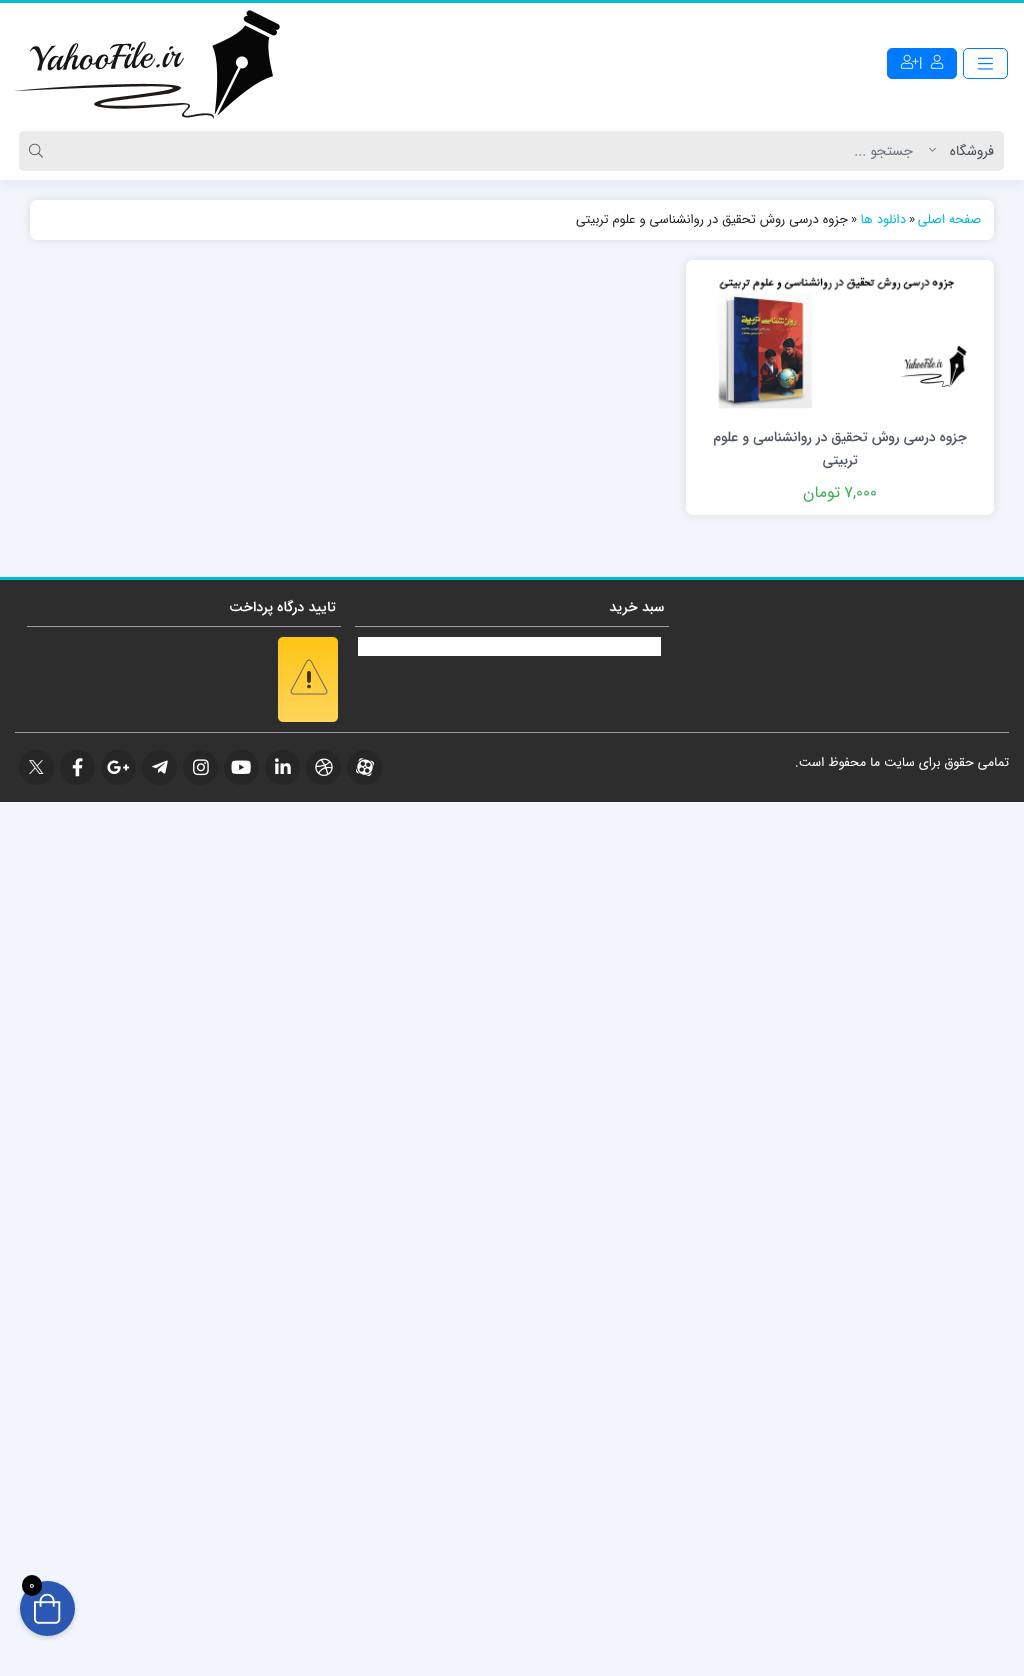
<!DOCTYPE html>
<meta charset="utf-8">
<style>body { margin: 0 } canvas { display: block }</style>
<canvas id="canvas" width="1024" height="1676"></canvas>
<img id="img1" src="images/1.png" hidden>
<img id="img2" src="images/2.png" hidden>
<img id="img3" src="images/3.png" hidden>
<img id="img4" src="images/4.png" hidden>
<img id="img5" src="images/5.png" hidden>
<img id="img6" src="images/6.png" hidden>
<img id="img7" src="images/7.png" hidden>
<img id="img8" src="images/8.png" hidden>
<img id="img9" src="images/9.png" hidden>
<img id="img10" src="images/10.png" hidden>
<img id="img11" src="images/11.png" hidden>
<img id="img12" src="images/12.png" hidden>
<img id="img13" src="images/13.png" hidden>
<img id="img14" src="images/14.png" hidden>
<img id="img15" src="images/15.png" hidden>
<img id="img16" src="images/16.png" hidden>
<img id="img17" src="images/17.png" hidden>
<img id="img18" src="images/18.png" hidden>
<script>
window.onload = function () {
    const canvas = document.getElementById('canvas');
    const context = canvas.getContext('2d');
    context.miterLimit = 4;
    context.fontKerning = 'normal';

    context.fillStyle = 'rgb(242, 246, 252)';
    context.fillRect(0, 0, 1024, 1676);
    context.fillStyle = 'rgb(0, 188, 212)';
    context.fillRect(0, 0, 1024, 3);
    context.fillStyle = 'rgba(0, 0, 0, 0.04)';
    context.filter = 'blur(4px)';
    context.beginPath();
    context.rect(0, 10, 1024, 177);
    context.fill();
    context.filter = 'none';
    context.fillStyle = 'rgb(255, 255, 255)';
    context.fillRect(0, 3, 1024, 177);
    context.beginPath();
    context.roundRect(963.5, 48.5, 44, 30, 4.5);
    context.strokeStyle = 'rgb(0, 123, 255)';
    context.stroke();
    context.drawImage(document.getElementById('img1'), 978, 57, 15, 13);
    context.fillStyle = 'rgb(0, 123, 255)';
    context.beginPath();
    context.roundRect(887.5, 48.5, 69, 30, 4.5);
    context.fill();
    context.stroke();
    context.drawImage(document.getElementById('img2'), 931, 54, 13, 15);
    context.drawImage(document.getElementById('img3'), 901, 54, 18, 15);
    context.drawImage(document.getElementById('img4'), 14, 10, 266, 109);
    context.fillStyle = 'rgb(235, 235, 235)';
    context.beginPath();
    context.roundRect(929, 131, 75, 40, [0, 5, 5, 0]);
    context.fill();
    context.drawImage(document.getElementById('img5'), 929, 147, 7, 5);
    context.fillRect(59, 131, 870, 40);
    context.beginPath();
    context.roundRect(19, 131, 40, 40, [5, 0, 0, 5]);
    context.fill();
    context.drawImage(document.getElementById('img6'), 29, 143, 14, 15);
    context.fillStyle = 'rgba(0, 0, 0, 0.1)';
    context.filter = 'blur(5px)';
    context.beginPath();
    context.roundRect(30, 200, 964, 40, 7);
    context.fill();
    context.filter = 'none';
    context.fillStyle = 'rgb(255, 255, 255)';
    context.beginPath();
    context.roundRect(30, 200, 964, 40, 7);
    context.fill();
    context.fillStyle = 'rgba(0, 0, 0, 0.1)';
    context.filter = 'blur(5px)';
    context.beginPath();
    context.roundRect(686, 260, 308, 255, 7);
    context.fill();
    context.filter = 'none';
    context.fillStyle = 'rgb(255, 255, 255)';
    context.beginPath();
    context.roundRect(686, 260, 308, 255, 7);
    context.fill();
    context.drawImage(document.getElementById('img7'), 718, 277, 249, 132);
    context.fillStyle = 'rgb(45, 45, 45)';
    context.fillRect(0, 580, 1024, 222);
    context.fillStyle = 'rgb(0, 188, 212)';
    context.fillRect(0, 577, 1024, 3);
    context.fillStyle = 'rgb(158, 158, 158)';
    context.fillRect(15, 732, 994, 1);
    context.fillRect(355, 626, 314, 1);
    context.fillStyle = 'rgb(255, 255, 255)';
    context.fillRect(358, 637, 303, 19);
    context.fillStyle = 'rgb(158, 158, 158)';
    context.fillRect(27, 626, 314, 1);
    context.drawImage(document.getElementById('img8'), 278, 637, 60, 85);
    context.fillStyle = 'rgb(38, 38, 38)';
    context.beginPath();
    context.arc(364.5, 767.5, 17.5, 0, 2 * Math.PI);
    context.fill();
    context.drawImage(document.getElementById('img9'), 356, 758, 18, 18);
    context.beginPath();
    context.arc(323.5, 767.5, 17.5, 0, 2 * Math.PI);
    context.fill();
    context.drawImage(document.getElementById('img10'), 315, 758, 18, 18);
    context.beginPath();
    context.arc(282.5, 767.5, 17.5, 0, 2 * Math.PI);
    context.fill();
    context.drawImage(document.getElementById('img11'), 275, 758, 16, 16);
    context.beginPath();
    context.arc(241.5, 767.5, 17.5, 0, 2 * Math.PI);
    context.fill();
    context.drawImage(document.getElementById('img12'), 231, 760, 20, 14);
    context.beginPath();
    context.arc(200.5, 767.5, 17.5, 0, 2 * Math.PI);
    context.fill();
    context.drawImage(document.getElementById('img13'), 193, 759, 16, 17);
    context.beginPath();
    context.arc(159.5, 767.5, 17.5, 0, 2 * Math.PI);
    context.fill();
    context.drawImage(document.getElementById('img14'), 152, 760, 16, 14);
    context.beginPath();
    context.arc(118.5, 767.5, 17.5, 0, 2 * Math.PI);
    context.fill();
    context.drawImage(document.getElementById('img15'), 107, 760, 23, 14);
    context.beginPath();
    context.arc(77.5, 767.5, 17.5, 0, 2 * Math.PI);
    context.fill();
    context.drawImage(document.getElementById('img16'), 72, 758, 11, 19);
    context.beginPath();
    context.arc(36.5, 767.5, 17.5, 0, 2 * Math.PI);
    context.fill();
    context.drawImage(document.getElementById('img17'), 29, 760, 15, 14);
    context.fillStyle = 'rgba(0, 0, 0, 0.16)';
    context.filter = 'blur(2.5px)';
    context.beginPath();
    context.roundRect(20, 1583, 55, 55, 27.5);
    context.fill();
    context.filter = 'none';
    context.fillStyle = 'rgb(43, 88, 179)';
    context.beginPath();
    context.arc(47.5, 1608.5, 27.5, 0, 2 * Math.PI);
    context.fill();
    context.drawImage(document.getElementById('img18'), 34, 1593, 27, 31);
    context.fillStyle = 'rgb(0, 0, 0)';
    context.beginPath();
    context.roundRect(22, 1575, 20, 21, 10);
    context.fill();
    context.font = '14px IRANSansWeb';
    context.fillStyle = 'rgb(255, 255, 255)';
    context.fillText('|', 919, 67);
    context.direction = 'rtl';
    context.fillStyle = 'rgb(73, 80, 87)';
    context.fillText('فروشگاه', 994, 155);
    context.fillStyle = 'rgb(108, 117, 125)';
    context.fillText('جستجو ...', 913, 155);
    context.font = '13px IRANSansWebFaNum';
    context.fillStyle = 'rgb(0, 188, 212)';
    context.fillText('صفحه اصلی', 981, 223);
    context.direction = 'ltr';
    context.fillStyle = 'rgb(33, 37, 41)';
    context.fillText('»', 909, 223);
    context.direction = 'rtl';
    context.fillStyle = 'rgb(0, 188, 212)';
    context.fillText('دانلود ها', 906, 223);
    context.direction = 'ltr';
    context.fillStyle = 'rgb(33, 37, 41)';
    context.fillText('»', 851, 223);
    context.direction = 'rtl';
    context.fillText('جزوه درسی روش تحقیق در روانشناسی و علوم تربیتی', 848, 223);
    context.font = '500 14px IRANSansWebFaNum';
    context.fillStyle = 'rgb(80, 87, 99)';
    context.fillText('جزوه درسی روش تحقیق در روانشناسی و علوم', 967, 441);
    context.fillText('تربیتی', 858, 464);
    context.direction = 'ltr';
    context.font = '16px IRANSansWebFaNum';
    context.fillStyle = 'rgb(57, 177, 86)';
    context.fillText('7,000', 844, 497);
    context.direction = 'rtl';
    context.fillText('تومان', 840, 497);
    context.font = '500 14px IRANSansWebFaNum';
    context.fillStyle = 'rgb(255, 255, 255)';
    context.fillText('سبد خرید', 664, 611);
    context.fillText('تایید درگاه پرداخت', 336, 611);
    context.font = '13px IRANSansWeb';
    context.fillText('تمامی حقوق برای سایت ما محفوظ است.', 1009, 766);
    context.direction = 'ltr';
    context.font = '13px IRANSansWebFaNum';
    context.fillText('0', 29, 1589);
};
</script>
